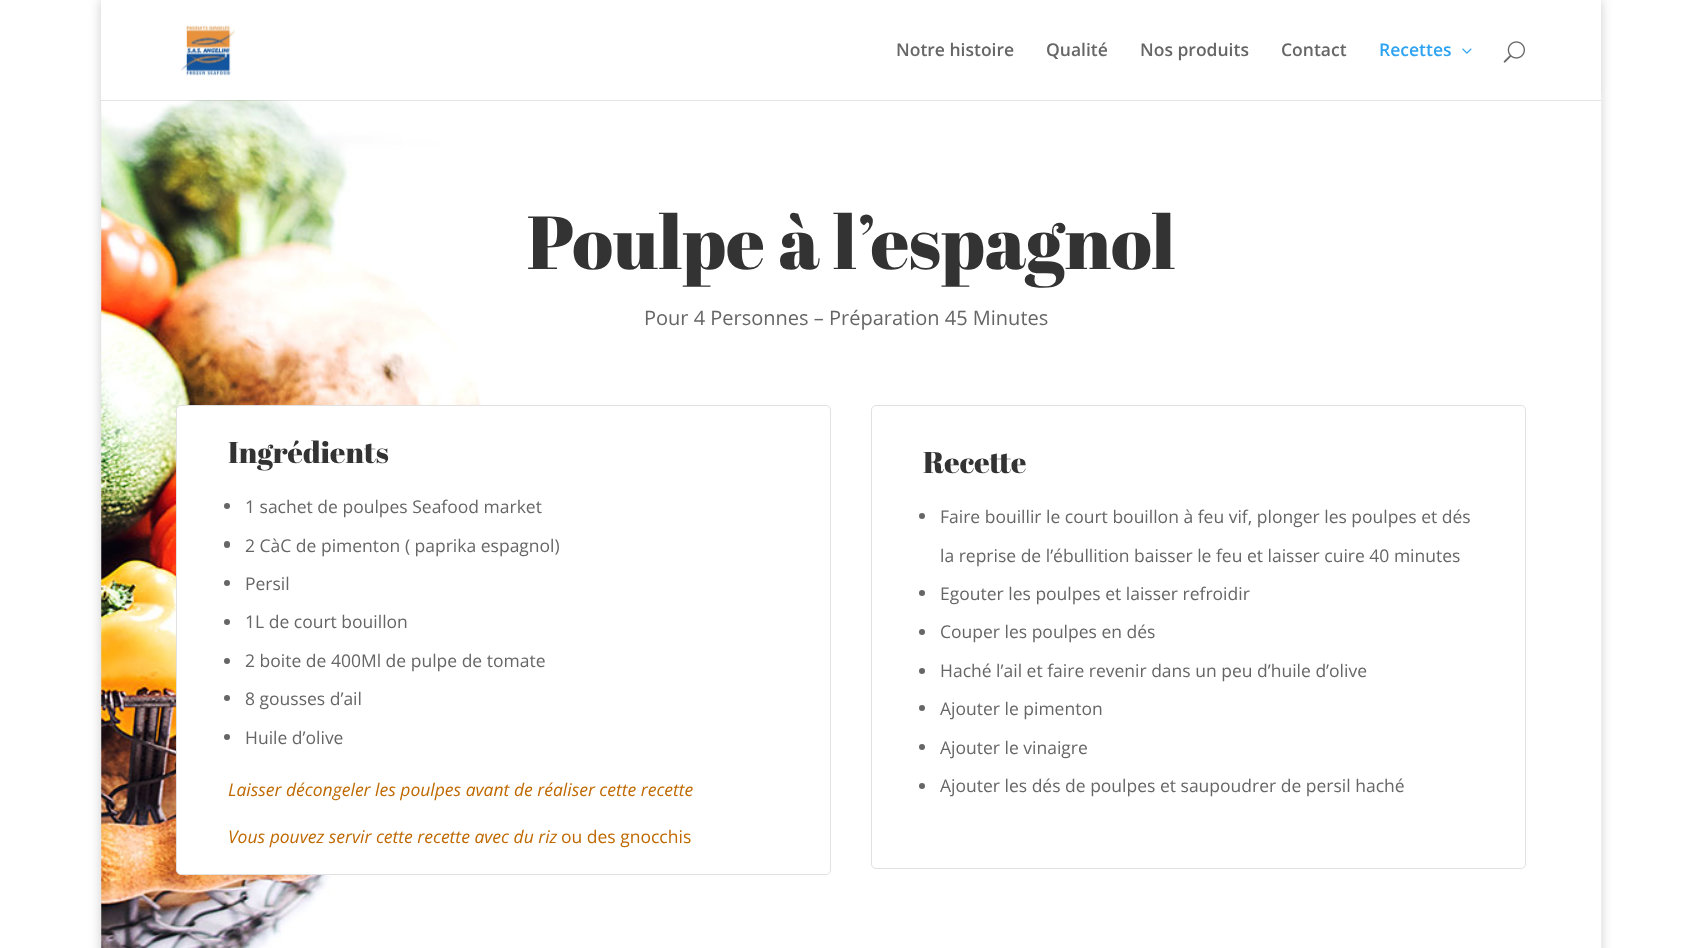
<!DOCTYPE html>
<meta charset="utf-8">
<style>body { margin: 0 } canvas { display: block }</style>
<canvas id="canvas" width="1702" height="948"></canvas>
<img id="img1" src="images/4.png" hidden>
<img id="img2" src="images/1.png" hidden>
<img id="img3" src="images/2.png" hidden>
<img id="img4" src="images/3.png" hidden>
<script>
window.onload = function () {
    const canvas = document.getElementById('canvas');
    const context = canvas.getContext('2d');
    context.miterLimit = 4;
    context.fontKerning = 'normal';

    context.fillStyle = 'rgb(255, 255, 255)';
    context.fillRect(0, 0, 1702, 948);
    context.fillStyle = 'rgba(0, 0, 0, 0.2)';
    context.filter = 'blur(6px)';
    context.beginPath();
    context.rect(101, 0, 1500, 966);
    context.fill();
    context.filter = 'none';
    context.drawImage(document.getElementById('img1'), 101, 93, 1501, 855);
    context.fillStyle = 'rgba(0, 0, 0, 0.1)';
    context.beginPath();
    context.moveTo(101, 1);
    context.lineTo(101, 101);
    context.lineTo(1601, 101);
    context.lineTo(1601, 100);
    context.lineTo(101, 100);
    context.closePath();
    context.fill();
    context.fillStyle = 'rgb(255, 255, 255)';
    context.fillRect(101, 0, 1500, 100);
    context.drawImage(document.getElementById('img2'), 181, 25, 54, 51);
    context.drawImage(document.getElementById('img3'), 1462, 48, 10, 6);
    context.drawImage(document.getElementById('img4'), 1503, 41, 22, 22);
    context.beginPath();
    context.roundRect(176.5, 405.5, 654, 469, 4.5);
    context.fill();
    context.strokeStyle = 'rgb(225, 225, 225)';
    context.stroke();
    context.fillStyle = 'rgb(102, 102, 102)';
    context.beginPath();
    context.arc(227, 506, 3, 0, 2 * Math.PI);
    context.fill();
    context.beginPath();
    context.roundRect(224, 541, 6, 7, 3);
    context.fill();
    context.beginPath();
    context.arc(227, 583, 3, 0, 2 * Math.PI);
    context.fill();
    context.beginPath();
    context.arc(227, 622, 3, 0, 2 * Math.PI);
    context.fill();
    context.beginPath();
    context.arc(227, 661, 3, 0, 2 * Math.PI);
    context.fill();
    context.beginPath();
    context.arc(227, 698, 3, 0, 2 * Math.PI);
    context.fill();
    context.beginPath();
    context.arc(227, 737, 3, 0, 2 * Math.PI);
    context.fill();
    context.beginPath();
    context.roundRect(871.5, 405.5, 654, 463, 4.5);
    context.stroke();
    context.beginPath();
    context.arc(922, 516, 3, 0, 2 * Math.PI);
    context.fill();
    context.beginPath();
    context.arc(922, 593, 3, 0, 2 * Math.PI);
    context.fill();
    context.beginPath();
    context.arc(922, 632, 3, 0, 2 * Math.PI);
    context.fill();
    context.beginPath();
    context.arc(922, 671, 3, 0, 2 * Math.PI);
    context.fill();
    context.beginPath();
    context.arc(922, 708, 3, 0, 2 * Math.PI);
    context.fill();
    context.beginPath();
    context.arc(922, 747, 3, 0, 2 * Math.PI);
    context.fill();
    context.beginPath();
    context.arc(922, 786, 3, 0, 2 * Math.PI);
    context.fill();
    context.font = '600 17.5px Open Sans';
    context.fillText('Notre histoire', 896, 56);
    context.fillText('Qualité', 1046, 56);
    context.fillText('Nos produits', 1140, 56);
    context.fillText('Contact', 1281, 56);
    context.fillStyle = 'rgb(46, 163, 242)';
    context.fillText('Recettes', 1379, 56);
    context.font = '75px Abril Fatface';
    context.fillStyle = 'rgb(51, 51, 51)';
    context.fillText('Poulpe à l’espagnol', 527, 269);
    context.font = '20px Open Sans';
    context.fillStyle = 'rgb(102, 102, 102)';
    context.fillText('Pour 4 Personnes – Préparation 45 Minutes', 644, 325);
    context.font = '30px Abril Fatface';
    context.fillStyle = 'rgb(51, 51, 51)';
    context.fillText('Ingrédients', 228, 463);
    context.font = '17.5px Open Sans';
    context.fillStyle = 'rgb(102, 102, 102)';
    context.fillText('1 sachet de poulpes Seafood market', 245, 513);
    context.fillText('2 CàC de pimenton ( paprika espagnol)', 245, 552);
    context.fillText('Persil', 245, 590);
    context.fillText('1L de court bouillon', 245, 628);
    context.fillText('2 boite de 400Ml de pulpe de tomate', 245, 667);
    context.fillText('8 gousses d’ail', 245, 705);
    context.fillText('Huile d’olive', 245, 744);
    context.font = 'italic 17.5px Open Sans';
    context.fillStyle = 'rgb(191, 105, 0)';
    context.fillText('Laisser décongeler les poulpes avant de réaliser cette recette', 228, 796);
    context.fillText('Vous pouvez servir cette recette avec du riz', 228, 843);
    context.font = '17.5px Open Sans';
    context.fillText('ou des gnocchis', 561, 843);
    context.font = '30px Abril Fatface';
    context.fillStyle = 'rgb(51, 51, 51)';
    context.fillText('Recette', 923, 473);
    context.font = '17.5px Open Sans';
    context.fillStyle = 'rgb(102, 102, 102)';
    context.fillText('Faire bouillir le court bouillon à feu vif, plonger les poulpes et dés', 940, 523);
    context.fillText('la reprise de l’ébullition baisser le feu et laisser cuire 40 minutes', 940, 562);
    context.fillText('Egouter les poulpes et laisser refroidir', 940, 600);
    context.fillText('Couper les poulpes en dés', 940, 638);
    context.fillText('Haché l’ail et faire revenir dans un peu d’huile d’olive', 940, 677);
    context.fillText('Ajouter le pimenton', 940, 715);
    context.fillText('Ajouter le vinaigre', 940, 754);
    context.fillText('Ajouter les dés de poulpes et saupoudrer de persil haché', 940, 792);
};
</script>
